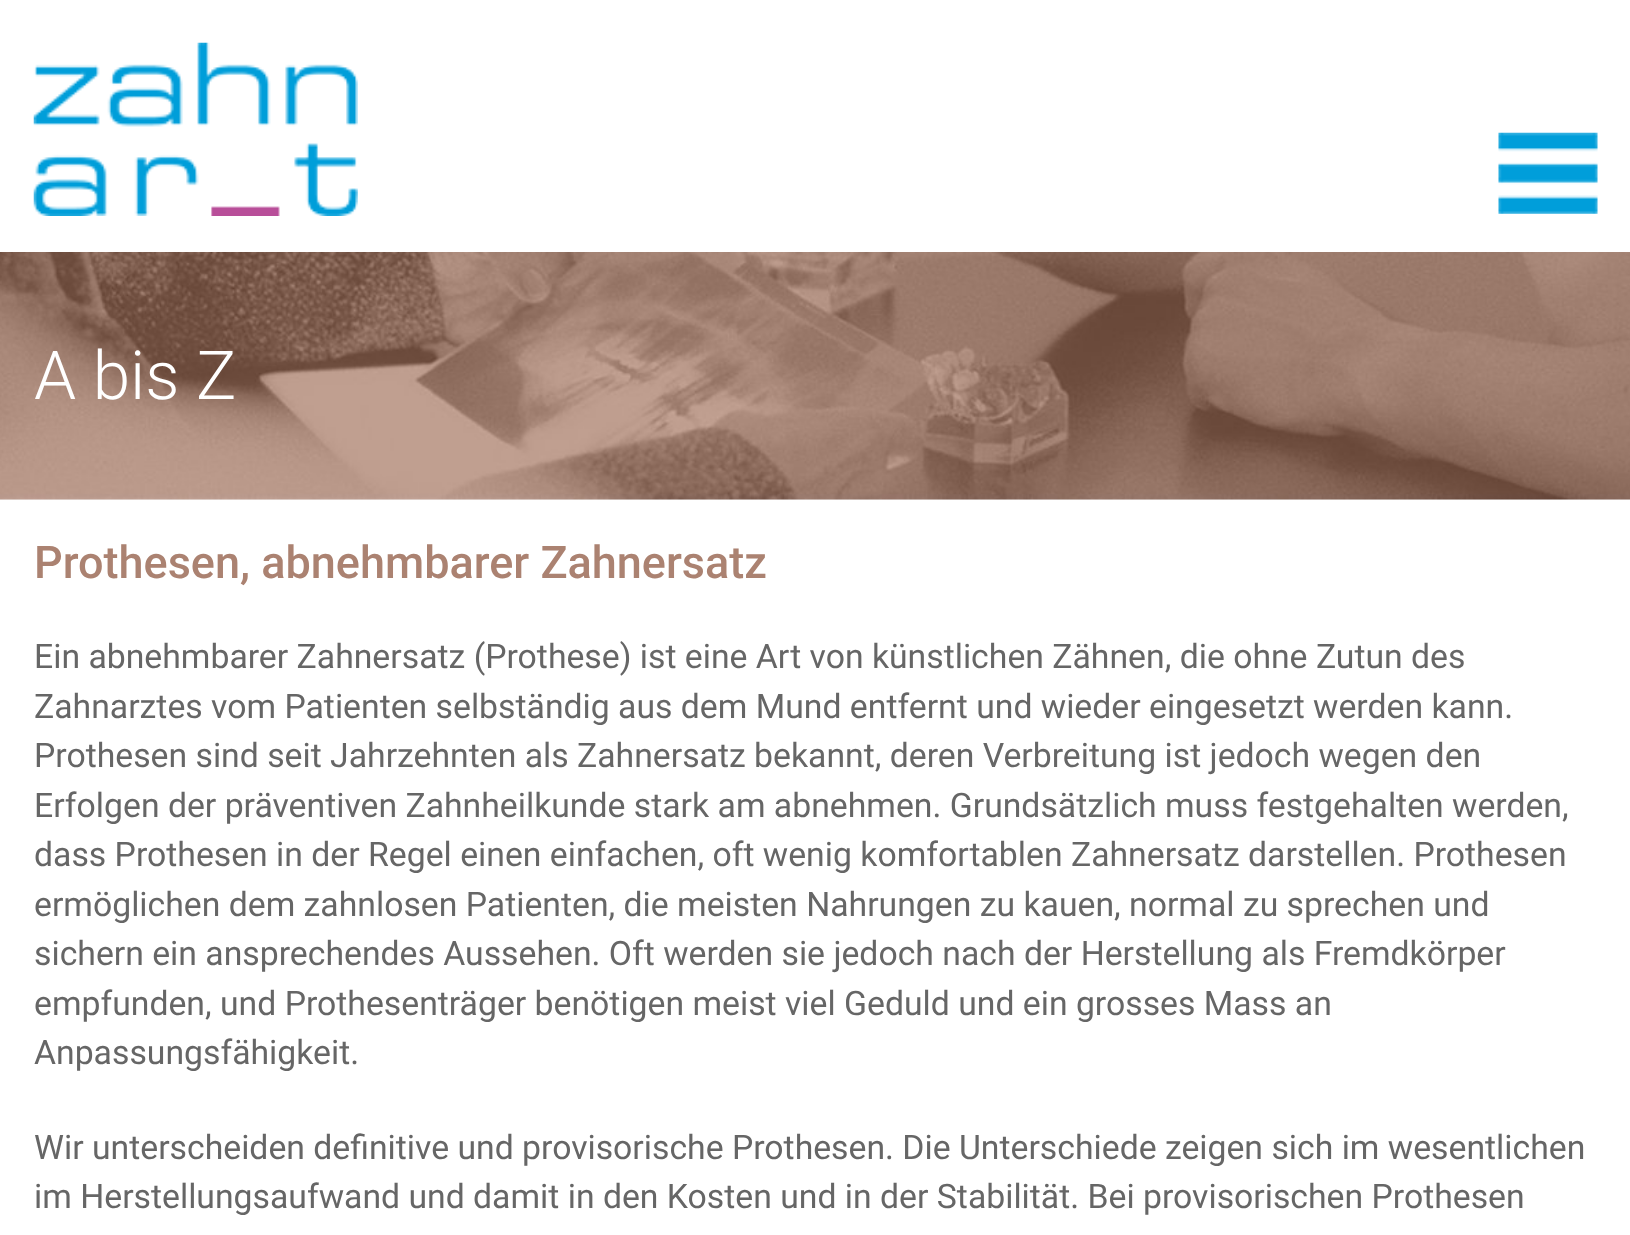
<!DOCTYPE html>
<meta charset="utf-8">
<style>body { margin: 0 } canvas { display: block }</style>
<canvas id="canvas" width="1630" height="1235"></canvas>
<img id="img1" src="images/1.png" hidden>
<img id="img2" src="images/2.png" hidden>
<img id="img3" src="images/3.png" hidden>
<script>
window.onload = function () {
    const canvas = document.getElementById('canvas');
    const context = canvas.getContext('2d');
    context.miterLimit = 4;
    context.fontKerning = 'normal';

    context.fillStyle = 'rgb(244, 244, 244)';
    context.fillRect(0, 0, 1630, 1235);
    context.fillStyle = 'rgb(255, 255, 255)';
    context.fillRect(0, 0, 1630, 252);
    context.drawImage(document.getElementById('img1'), 33, 42, 325, 174);
    context.drawImage(document.getElementById('img2'), 1498, 132, 100, 82);
    context.drawImage(document.getElementById('img3'), 0, 252, 1630, 248);
    context.fillRect(0, 500, 1630, 735);
    context.font = '300 67.5px Roboto';
    context.fillText('A bis Z', 34, 399);
    context.font = '500 45px Roboto';
    context.fillStyle = 'rgb(171, 130, 113)';
    context.fillText('Prothesen, abnehmbarer Zahnersatz', 34, 578);
    context.font = '33.75px Roboto';
    context.fillStyle = 'rgb(102, 102, 102)';
    context.fillText('Ein abnehmbarer Zahnersatz (Prothese) ist eine Art von künstlichen Zähnen, die ohne Zutun des', 34, 668);
    context.fillText('Zahnarztes vom Patienten selbständig aus dem Mund entfernt und wieder eingesetzt werden kann.', 34, 718);
    context.fillText('Prothesen sind seit Jahrzehnten als Zahnersatz bekannt, deren Verbreitung ist jedoch wegen den', 34, 767);
    context.fillText('Erfolgen der präventiven Zahnheilkunde stark am abnehmen. Grundsätzlich muss festgehalten werden,', 34, 817);
    context.fillText('dass Prothesen in der Regel einen einfachen, oft wenig komfortablen Zahnersatz darstellen. Prothesen', 34, 866);
    context.fillText('ermöglichen dem zahnlosen Patienten, die meisten Nahrungen zu kauen, normal zu sprechen und', 34, 916);
    context.fillText('sichern ein ansprechendes Aussehen. Oft werden sie jedoch nach der Herstellung als Fremdkörper', 34, 965);
    context.fillText('empfunden, und Prothesenträger benötigen meist viel Geduld und ein grosses Mass an', 34, 1015);
    context.fillText('Anpassungsfähigkeit.', 34, 1064);
    context.fillText('Wir unterscheiden definitive und provisorische Prothesen. Die Unterschiede zeigen sich im wesentlichen', 34, 1159);
    context.fillText('im Herstellungsaufwand und damit in den Kosten und in der Stabilität. Bei provisorischen Prothesen', 34, 1208);
};
</script>
